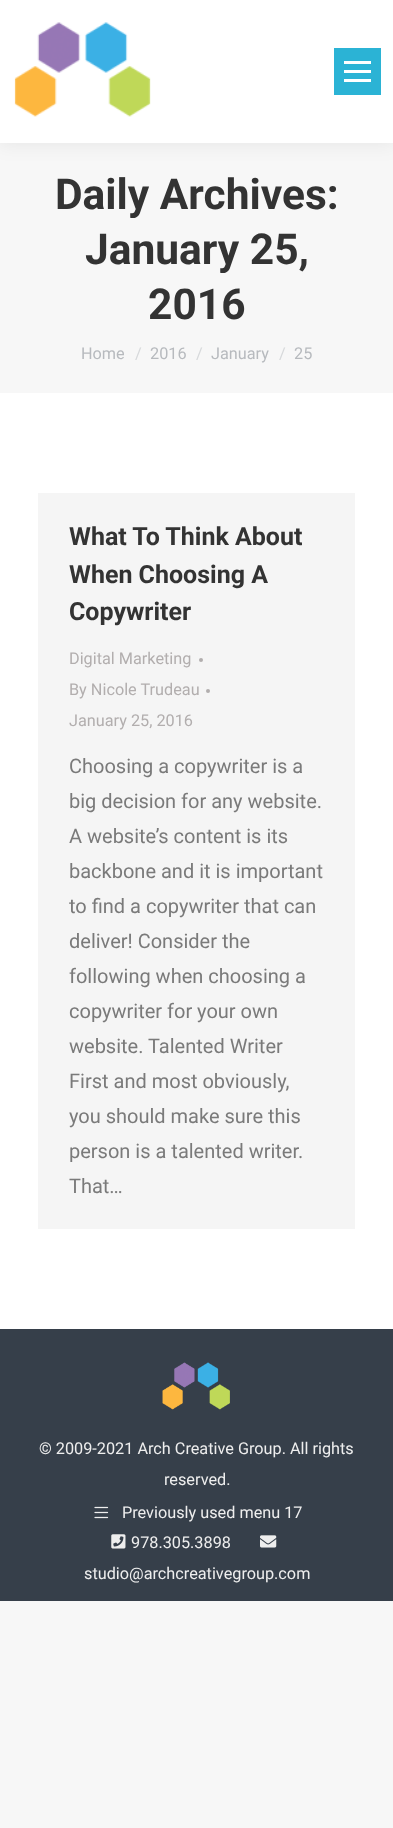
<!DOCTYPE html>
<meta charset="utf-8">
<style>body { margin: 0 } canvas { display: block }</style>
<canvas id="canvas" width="393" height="1828"></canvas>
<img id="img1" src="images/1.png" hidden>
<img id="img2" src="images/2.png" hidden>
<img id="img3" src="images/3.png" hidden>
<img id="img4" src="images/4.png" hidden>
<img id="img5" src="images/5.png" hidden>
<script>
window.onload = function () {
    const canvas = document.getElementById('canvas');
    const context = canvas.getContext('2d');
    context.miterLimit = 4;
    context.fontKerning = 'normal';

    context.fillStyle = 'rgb(247, 247, 247)';
    context.fillRect(0, 0, 393, 1828);
    context.fillStyle = 'rgb(255, 255, 255)';
    context.fillRect(0, 393, 393, 936);
    context.fillStyle = 'rgba(0, 0, 0, 0.07)';
    context.filter = 'blur(9.5px)';
    context.beginPath();
    context.rect(-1, -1, 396, 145);
    context.fill();
    context.filter = 'none';
    context.fillStyle = 'rgb(255, 255, 255)';
    context.fillRect(0, 0, 393, 143);
    context.drawImage(document.getElementById('img1'), 14, 22, 137, 95);
    context.fillStyle = 'rgb(43, 179, 213)';
    context.fillRect(334, 48, 47, 47);
    context.fillStyle = 'rgb(255, 255, 255)';
    context.fillRect(344, 61, 27, 3);
    context.fillRect(344, 70, 27, 3);
    context.fillRect(344, 79, 27, 3);
    context.fillStyle = 'rgb(245, 245, 245)';
    context.fillRect(38, 493, 317, 736);
    context.fillStyle = 'rgb(178, 174, 174)';
    context.beginPath();
    context.arc(201, 660, 2, 0, 2 * Math.PI);
    context.fill();
    context.beginPath();
    context.arc(208, 691, 2, 0, 2 * Math.PI);
    context.fill();
    context.fillStyle = 'rgb(54, 63, 74)';
    context.fillRect(0, 1329, 393, 272);
    context.drawImage(document.getElementById('img2'), 162, 1362, 68, 48);
    context.drawImage(document.getElementById('img3'), 94, 1506, 15, 13);
    context.drawImage(document.getElementById('img4'), 111, 1534, 15, 15);
    context.drawImage(document.getElementById('img5'), 260, 1535, 17, 13);
    context.font = 'bold 42.5px Roboto';
    context.fillStyle = 'rgb(51, 51, 51)';
    context.fillText('Daily Archives:', 55, 209);
    context.fillText('January 25,', 85, 264);
    context.fillText('2016', 148, 319);
    context.font = '16.25px Roboto';
    context.fillStyle = 'rgb(183, 186, 190)';
    context.fillText('Home', 81, 359);
    context.fillStyle = 'rgb(215, 217, 219)';
    context.fillText('/', 135, 359);
    context.fillStyle = 'rgb(183, 186, 190)';
    context.fillText('2016', 150, 359);
    context.fillStyle = 'rgb(215, 217, 219)';
    context.fillText('/', 196, 359);
    context.fillStyle = 'rgb(183, 186, 190)';
    context.fillText('January', 211, 359);
    context.fillStyle = 'rgb(215, 217, 219)';
    context.fillText('/', 279, 359);
    context.fillStyle = 'rgb(183, 186, 190)';
    context.fillText('25', 294, 359);
    context.font = 'bold 25px Roboto';
    context.fillStyle = 'rgb(51, 51, 51)';
    context.fillText('What To Think About', 69, 545);
    context.fillText('When Choosing A', 69, 583);
    context.fillText('Copywriter', 69, 620);
    context.font = '16.25px Roboto';
    context.fillStyle = 'rgb(178, 174, 174)';
    context.fillText('Digital Marketing', 69, 664);
    context.fillText('By Nicole Trudeau', 69, 695);
    context.fillText('January 25, 2016', 69, 726);
    context.font = '20px Roboto';
    context.fillStyle = 'rgb(122, 122, 122)';
    context.fillText('Choosing a copywriter is a', 69, 773);
    context.fillText('big decision for any website.', 69, 808);
    context.fillText('A website’s content is its', 69, 843);
    context.fillText('backbone and it is important', 69, 878);
    context.fillText('to find a copywriter that can', 69, 913);
    context.fillText('deliver! Consider the', 69, 948);
    context.fillText('following when choosing a', 69, 983);
    context.fillText('copywriter for your own', 69, 1018);
    context.fillText('website. Talented Writer', 69, 1053);
    context.fillText('First and most obviously,', 69, 1088);
    context.fillText('you should make sure this', 69, 1123);
    context.fillText('person is a talented writer.', 69, 1158);
    context.fillText('That…', 69, 1193);
    context.font = '16.25px Roboto';
    context.fillStyle = 'rgb(238, 238, 238)';
    context.fillText('© 2009-2021 Arch Creative Group. All rights', 39, 1454);
    context.fillText('reserved.', 164, 1485);
    context.fillText('Previously used menu 17', 122, 1518);
    context.fillText('978.305.3898', 131, 1548);
    context.fillText('studio@archcreativegroup.com', 84, 1579);
};
</script>
